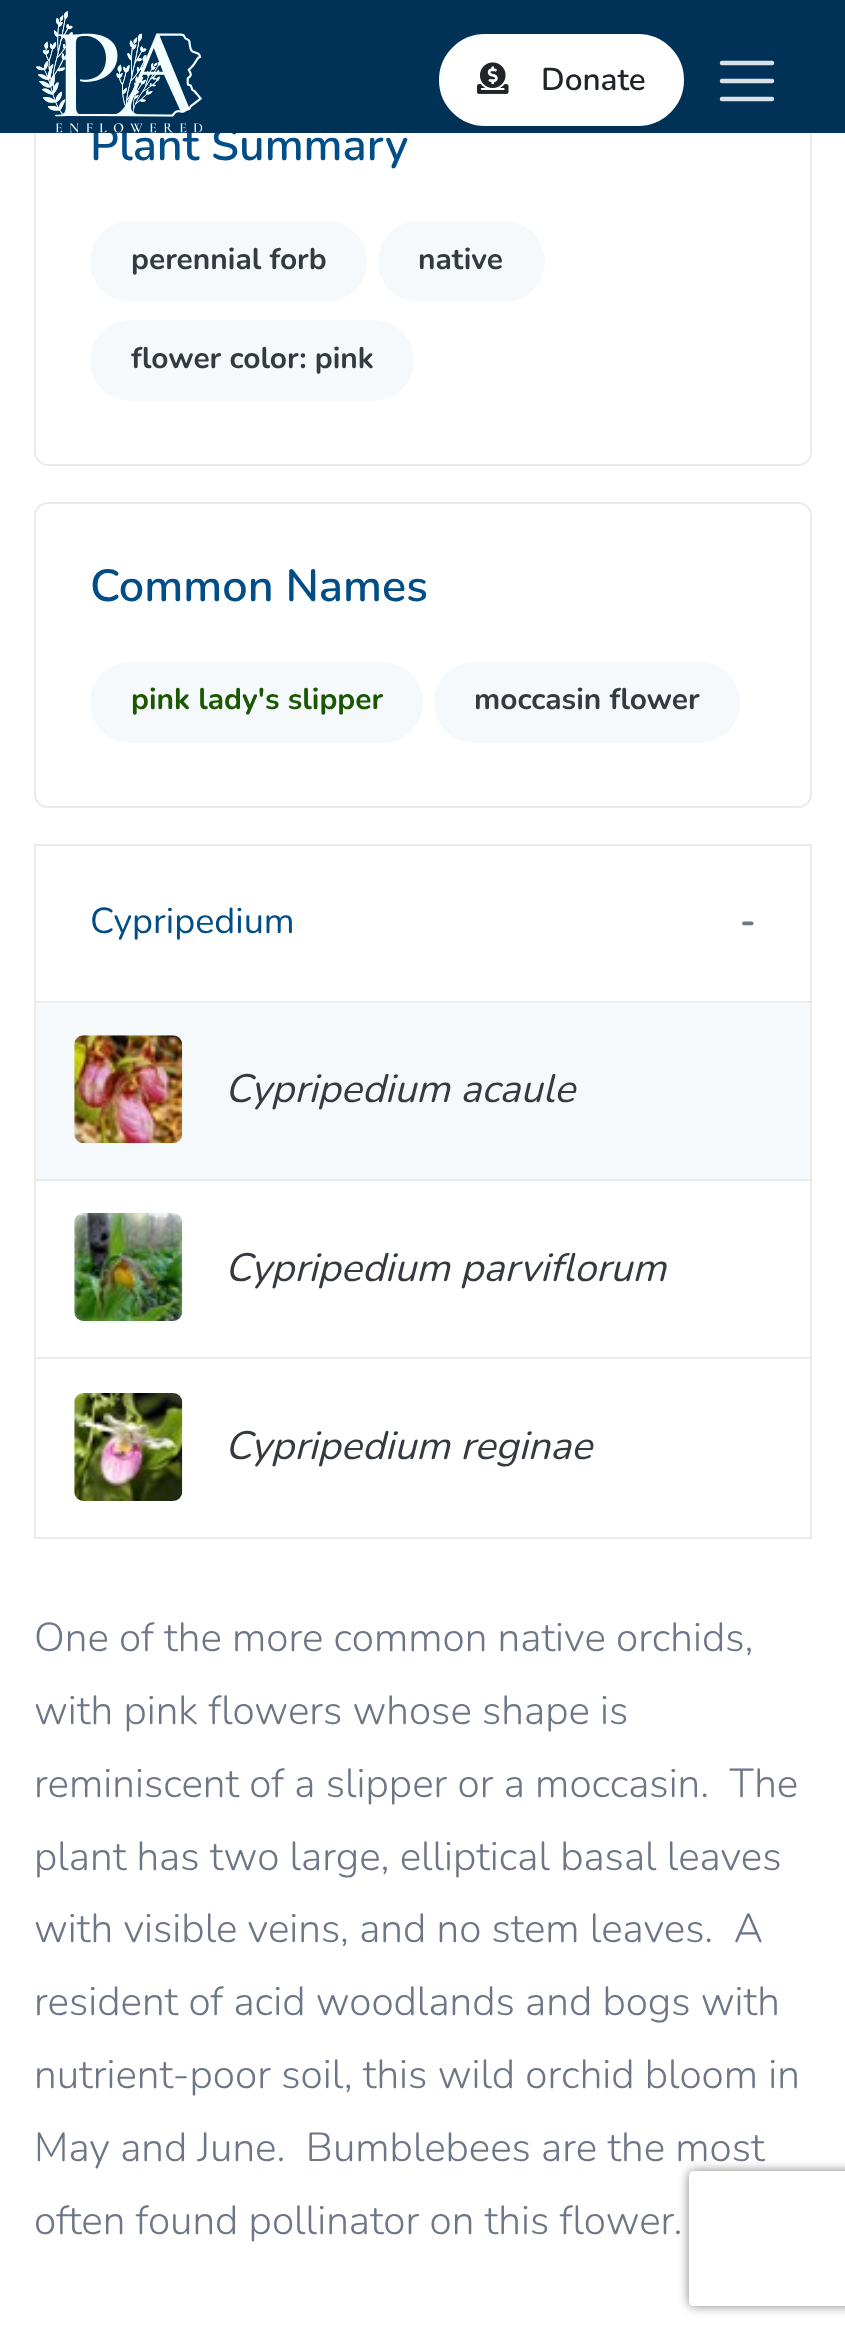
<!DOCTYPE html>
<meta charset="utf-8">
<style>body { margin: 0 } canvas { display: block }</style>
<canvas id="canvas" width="845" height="2336"></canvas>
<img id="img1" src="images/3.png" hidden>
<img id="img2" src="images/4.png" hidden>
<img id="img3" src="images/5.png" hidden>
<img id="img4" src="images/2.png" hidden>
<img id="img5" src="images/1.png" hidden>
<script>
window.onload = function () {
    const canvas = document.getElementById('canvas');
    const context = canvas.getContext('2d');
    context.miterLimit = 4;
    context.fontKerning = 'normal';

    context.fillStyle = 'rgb(255, 255, 255)';
    context.fillRect(0, 0, 845, 2336);
    context.beginPath();
    context.roundRect(35, 62, 776, 403, 13);
    context.strokeStyle = 'rgb(235, 235, 235)';
    context.lineWidth = 2;
    context.stroke();
    context.fillStyle = 'rgb(245, 249, 251)';
    context.beginPath();
    context.roundRect(90, 221, 277, 81, 40.5);
    context.fill();
    context.beginPath();
    context.roundRect(378, 221, 167, 81, 40.5);
    context.fill();
    context.beginPath();
    context.roundRect(90, 320, 324, 81, 40.5);
    context.fill();
    context.beginPath();
    context.roundRect(35, 503, 776, 304, 13);
    context.stroke();
    context.beginPath();
    context.roundRect(90, 662, 333, 81, 40.5);
    context.fill();
    context.beginPath();
    context.roundRect(434, 662, 306, 81, 40.5);
    context.fill();
    context.fillStyle = 'rgb(235, 235, 235)';
    context.beginPath();
    context.moveTo(34, 844);
    context.lineTo(812, 844);
    context.lineTo(810, 846);
    context.lineTo(36, 846);
    context.closePath();
    context.fill();
    context.fillStyle = 'rgba(0, 0, 0, 0.08)';
    context.beginPath();
    context.moveTo(812, 844);
    context.lineTo(812, 1539);
    context.lineTo(810, 1539);
    context.lineTo(810, 846);
    context.closePath();
    context.fill();
    context.beginPath();
    context.moveTo(34, 1539);
    context.lineTo(34, 844);
    context.lineTo(36, 846);
    context.lineTo(36, 1539);
    context.closePath();
    context.fill();
    context.fillStyle = 'rgb(235, 235, 235)';
    context.fillRect(36, 1001, 774, 2);
    context.fillStyle = 'rgb(245, 249, 251)';
    context.fillRect(36, 1004, 774, 175);
    context.drawImage(document.getElementById('img1'), 74, 1035, 109, 109);
    context.fillStyle = 'rgb(233, 236, 239)';
    context.fillRect(36, 1179, 774, 2);
    context.drawImage(document.getElementById('img2'), 74, 1213, 109, 108);
    context.fillRect(36, 1357, 774, 2);
    context.fillRect(36, 1537, 774, 2);
    context.drawImage(document.getElementById('img3'), 74, 1393, 109, 108);
    context.save();
    context.beginPath();
    context.moveTo(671, 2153);
    context.lineTo(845, 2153);
    context.lineTo(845, 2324);
    context.lineTo(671, 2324);
    context.closePath();
    context.moveTo(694, 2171);
    context.lineTo(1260, 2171);
    context.bezierCurveTo(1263, 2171, 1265, 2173, 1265, 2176);
    context.lineTo(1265, 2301);
    context.bezierCurveTo(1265, 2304, 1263, 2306, 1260, 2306);
    context.lineTo(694, 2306);
    context.bezierCurveTo(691, 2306, 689, 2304, 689, 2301);
    context.lineTo(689, 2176);
    context.bezierCurveTo(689, 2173, 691, 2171, 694, 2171);
    context.closePath();
    context.clip('evenodd');
    context.fillStyle = 'rgb(128, 128, 128)';
    context.filter = 'blur(5.5px)';
    context.beginPath();
    context.roundRect(689, 2171, 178, 135, 5);
    context.fill();
    context.filter = 'none';
    context.restore();
    context.font = '600 45px Nunito';
    context.fillStyle = 'rgb(0, 77, 135)';
    context.fillText('Plant Summary', 90, 160);
    context.fillStyle = 'rgb(0, 50, 88)';
    context.fillRect(0, 0, 845, 133);
    context.fillStyle = 'rgb(255, 255, 255)';
    context.beginPath();
    context.roundRect(440, 35, 243, 90, 45);
    context.fill();
    context.strokeStyle = 'rgb(255, 255, 255)';
    context.stroke();
    context.font = '600 31.5px Nunito';
    context.fillStyle = 'rgb(33, 37, 41)';
    context.fillText('Donate', 541, 90);
    context.drawImage(document.getElementById('img4'), 477, 62, 32, 32);
    context.beginPath();
    context.moveTo(722, 63);
    context.lineTo(772, 63);
    context.moveTo(722, 81);
    context.lineTo(772, 81);
    context.moveTo(722, 99);
    context.lineTo(772, 99);
    context.strokeStyle = 'rgb(217, 224, 230)';
    context.lineWidth = 4.5;
    context.lineCap = 'round';
    context.stroke();
    context.drawImage(document.getElementById('img5'), 36, 11, 167, 122);
    context.font = 'bold 29.9px Nunito';
    context.fillStyle = 'rgb(52, 58, 64)';
    context.fillText('perennial forb', 131, 269);
    context.fillText('native', 418, 269);
    context.fillText('flower color: pink', 131, 368);
    context.font = '600 45px Nunito';
    context.fillStyle = 'rgb(0, 77, 135)';
    context.fillText('Common Names', 90, 601);
    context.font = 'bold 29.9px Nunito';
    context.fillStyle = 'rgb(26, 87, 0)';
    context.fillText('pink lady\'s slipper', 131, 709);
    context.fillStyle = 'rgb(52, 58, 64)';
    context.fillText('moccasin flower', 474, 709);
    context.font = '36px Nunito';
    context.fillStyle = 'rgb(0, 77, 135)';
    context.fillText('Cypripedium', 90, 933);
    context.font = 'bold 36px Nunito';
    context.fillStyle = 'rgb(108, 118, 134)';
    context.fillText('-', 740, 933);
    context.font = 'italic 39.6px Nunito';
    context.fillStyle = 'rgb(52, 58, 64)';
    context.fillText('Cypripedium acaule', 225, 1102);
    context.fillText('Cypripedium parviflorum', 225, 1281);
    context.fillText('Cypripedium reginae', 225, 1459);
    context.font = '300 40.5px Nunito';
    context.fillStyle = 'rgb(108, 118, 134)';
    context.fillText('One of the more common native orchids,', 34, 1651);
    context.fillText('with pink flowers whose shape is', 34, 1724);
    context.fillText('reminiscent of a slipper or a moccasin.  The', 34, 1797);
    context.fillText('plant has two large, elliptical basal leaves', 34, 1870);
    context.fillText('with visible veins, and no stem leaves.  A', 34, 1942);
    context.fillText('resident of acid woodlands and bogs with', 34, 2015);
    context.fillText('nutrient-poor soil, this wild orchid bloom in', 34, 2088);
    context.fillText('May and June.  Bumblebees are the most', 34, 2161);
    context.fillText('often found pollinator on this flower.', 34, 2234);
};
</script>
